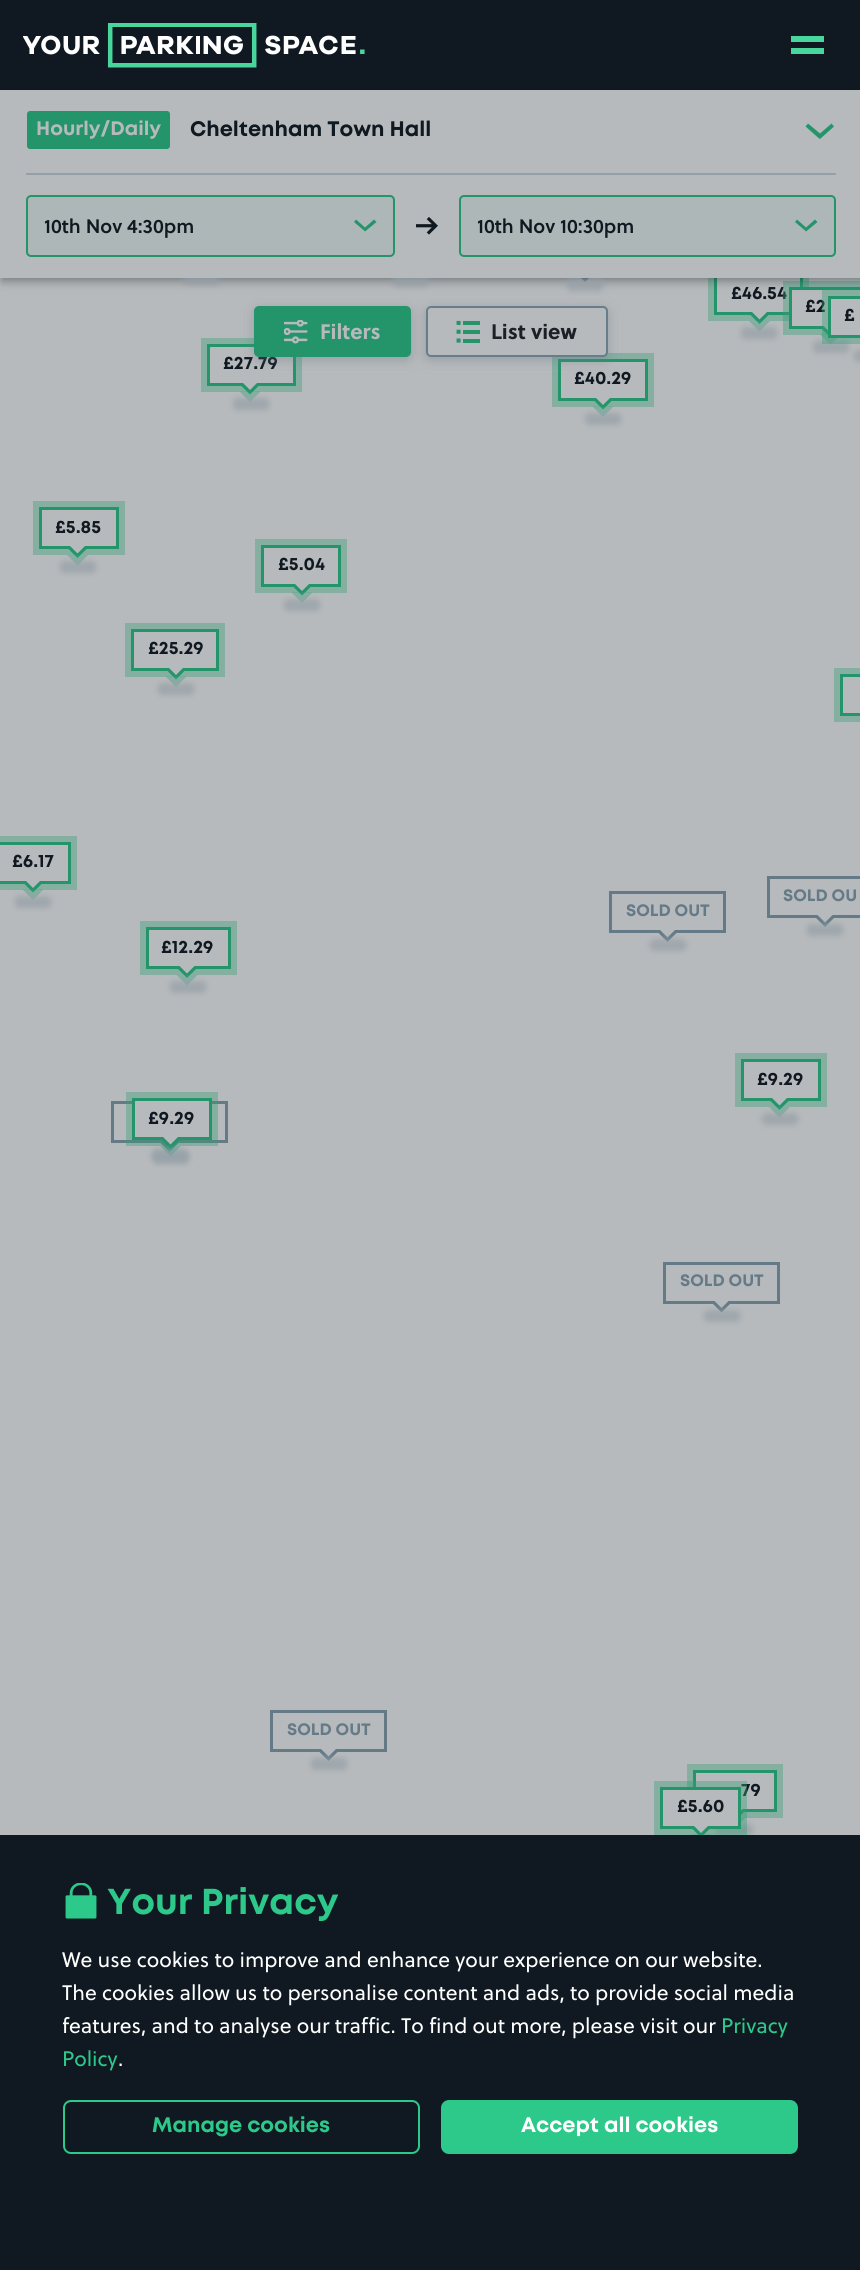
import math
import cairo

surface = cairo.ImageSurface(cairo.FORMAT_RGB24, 860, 2270)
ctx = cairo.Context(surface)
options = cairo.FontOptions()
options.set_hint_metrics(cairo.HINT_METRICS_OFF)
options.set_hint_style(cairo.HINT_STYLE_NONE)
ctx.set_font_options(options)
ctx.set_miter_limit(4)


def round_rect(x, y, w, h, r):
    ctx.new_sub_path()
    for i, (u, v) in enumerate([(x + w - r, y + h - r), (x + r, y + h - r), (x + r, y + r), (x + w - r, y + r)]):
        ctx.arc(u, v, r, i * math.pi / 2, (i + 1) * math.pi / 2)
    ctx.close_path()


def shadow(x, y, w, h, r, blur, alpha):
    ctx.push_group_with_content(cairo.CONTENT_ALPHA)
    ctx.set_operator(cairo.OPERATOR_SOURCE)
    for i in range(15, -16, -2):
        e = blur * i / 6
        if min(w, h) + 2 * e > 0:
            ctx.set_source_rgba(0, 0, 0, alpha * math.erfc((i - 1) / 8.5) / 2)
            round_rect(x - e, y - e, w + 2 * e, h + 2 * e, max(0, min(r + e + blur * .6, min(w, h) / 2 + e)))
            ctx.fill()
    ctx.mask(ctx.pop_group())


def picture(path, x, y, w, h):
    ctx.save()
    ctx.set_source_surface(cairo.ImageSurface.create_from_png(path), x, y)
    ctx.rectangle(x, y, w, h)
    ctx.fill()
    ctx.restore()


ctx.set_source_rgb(0.718, 0.729, 0.737)
ctx.paint()
ctx.set_source_rgb(0.518, 0.686, 0.631)
ctx.new_path()
ctx.move_to(400.5, 268.5)
ctx.line_to(421.5, 268.5)
ctx.line_to(411, 279)
ctx.close_path()
ctx.fill()
ctx.set_source_rgb(0.396, 0.478, 0.529)
ctx.new_path()
ctx.move_to(576, 273)
ctx.line_to(594, 273)
ctx.line_to(585, 282)
ctx.close_path()
ctx.fill()
ctx.set_source_rgb(0.518, 0.686, 0.631)
ctx.rectangle(708, 278, 101, 43)
ctx.fill()
ctx.set_source_rgb(0.718, 0.729, 0.737)
ctx.rectangle(717, 278, 83, 34)
ctx.fill()
ctx.rectangle(715.5, 274.5, 86, 39)
ctx.set_source_rgb(0.141, 0.58, 0.42)
ctx.set_line_width(3)
ctx.stroke()
ctx.select_font_face("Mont", cairo.FONT_SLANT_NORMAL, cairo.FONT_WEIGHT_BOLD)
ctx.set_font_size(18)
ctx.set_source_rgb(0.063, 0.098, 0.129)
ctx.move_to(731, 299)
ctx.show_text("£46.54")
ctx.set_source_rgb(0.141, 0.58, 0.42)
ctx.new_path()
ctx.move_to(750.5, 315)
ctx.line_to(768.5, 315)
ctx.line_to(759.5, 324)
ctx.close_path()
ctx.fill()
ctx.set_source_rgb(0.718, 0.729, 0.737)
ctx.new_path()
ctx.move_to(750.5, 310.5)
ctx.line_to(768.5, 310.5)
ctx.line_to(759.5, 319.5)
ctx.close_path()
ctx.fill()
ctx.set_source_rgba(0.22, 0.616, 0.471, 0.4)
ctx.new_path()
ctx.move_to(749, 321)
ctx.line_to(770, 321)
ctx.line_to(759.5, 331.5)
ctx.close_path()
ctx.fill()
ctx.set_source_rgb(0.58, 0.624, 0.655)
shadow(741, 327, 36, 12, 6, 3, 0.7)
ctx.set_source_rgba(0.22, 0.616, 0.471, 0.4)
ctx.rectangle(783, 281, 77, 54)
ctx.fill()
ctx.set_source_rgb(0.718, 0.729, 0.737)
ctx.rectangle(790.5, 288.5, 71, 39)
ctx.fill_preserve()
ctx.set_source_rgb(0.141, 0.58, 0.42)
ctx.stroke()
ctx.set_source_rgb(0.063, 0.098, 0.129)
ctx.move_to(805, 312)
ctx.show_text("£2")
ctx.set_source_rgb(0.141, 0.58, 0.42)
ctx.new_path()
ctx.move_to(821.5, 328.5)
ctx.line_to(839.5, 328.5)
ctx.line_to(830.5, 337.5)
ctx.close_path()
ctx.fill()
ctx.set_source_rgb(0.718, 0.729, 0.737)
ctx.new_path()
ctx.move_to(821.5, 324)
ctx.line_to(839.5, 324)
ctx.line_to(830.5, 333)
ctx.close_path()
ctx.fill()
ctx.set_source_rgba(0.22, 0.616, 0.471, 0.4)
ctx.new_path()
ctx.move_to(820, 334.5)
ctx.line_to(841, 334.5)
ctx.line_to(830.5, 345)
ctx.close_path()
ctx.fill()
ctx.set_source_rgb(0.58, 0.624, 0.655)
shadow(813, 341, 36, 12, 6, 3, 0.7)
ctx.set_source_rgba(0.22, 0.616, 0.471, 0.4)
ctx.rectangle(822, 290, 38, 54)
ctx.fill()
ctx.set_source_rgb(0.718, 0.729, 0.737)
ctx.rectangle(829.5, 297.5, 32, 39)
ctx.fill_preserve()
ctx.set_source_rgb(0.141, 0.58, 0.42)
ctx.stroke()
ctx.set_source_rgb(0.063, 0.098, 0.129)
shadow(2, 93, 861, 188, 0, 5, 0.4)
ctx.set_source_rgb(0.063, 0.098, 0.129)
ctx.rectangle(0, 0, 860, 90)
ctx.fill()
picture("img1.png", 23, 23, 342, 45)
ctx.set_source_rgb(0.286, 0.839, 0.616)
ctx.rectangle(791, 36, 33, 6)
ctx.fill()
ctx.rectangle(791, 48, 33, 6)
ctx.fill()
ctx.set_source_rgb(0.58, 0.624, 0.655)
shadow(183, 273, 36, 12, 6, 3, 0.7)
shadow(393, 275, 36, 12, 6, 3, 0.7)
shadow(567, 279, 36, 12, 6, 3, 0.7)
ctx.set_source_rgb(0.718, 0.729, 0.737)
ctx.rectangle(0, 90, 860, 188)
ctx.fill()
ctx.set_source_rgb(0.141, 0.58, 0.42)
round_rect(27, 111, 143, 38, 3)
ctx.fill()
ctx.set_font_size(19.5)
ctx.set_source_rgb(0.718, 0.729, 0.737)
ctx.move_to(36, 135)
ctx.show_text("Hourly/Daily")
ctx.set_font_size(21)
ctx.set_source_rgb(0.063, 0.098, 0.129)
ctx.move_to(190, 136)
ctx.show_text("Cheltenham Town Hall")
ctx.set_source_rgb(0.141, 0.58, 0.42)
ctx.new_path()
ctx.move_to(820, 139)
ctx.line_to(834, 126.5)
ctx.line_to(831.5, 123.5)
ctx.line_to(820, 133.5)
ctx.line_to(808, 123.5)
ctx.line_to(805.5, 126.5)
ctx.line_to(818.5, 138)
ctx.close_path()
ctx.fill()
ctx.set_source_rgb(0.58, 0.624, 0.655)
ctx.rectangle(26, 173, 810, 2)
ctx.fill()
ctx.set_source_rgb(0.678, 0.718, 0.718)
round_rect(27, 196, 367, 60, 4)
ctx.fill_preserve()
ctx.set_source_rgb(0.141, 0.58, 0.42)
ctx.set_line_width(2)
ctx.stroke()
ctx.select_font_face("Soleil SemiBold")
ctx.set_font_size(19.5)
ctx.set_source_rgb(0.063, 0.098, 0.129)
ctx.move_to(44, 233)
ctx.show_text("10th Nov 4:30pm")
ctx.set_source_rgb(0.141, 0.58, 0.42)
ctx.new_path()
ctx.move_to(365, 231.5)
ctx.line_to(376.5, 222)
ctx.line_to(374, 219.5)
ctx.line_to(365, 227.5)
ctx.line_to(356, 219.5)
ctx.line_to(354, 222)
ctx.line_to(364, 230.5)
ctx.close_path()
ctx.fill()
picture("img2.png", 416, 217, 22, 18)
ctx.set_source_rgb(0.678, 0.718, 0.718)
round_rect(460, 196, 375, 60, 4)
ctx.fill_preserve()
ctx.set_source_rgb(0.141, 0.58, 0.42)
ctx.stroke()
ctx.set_source_rgb(0.063, 0.098, 0.129)
ctx.move_to(477, 233)
ctx.show_text("10th Nov 10:30pm")
ctx.set_source_rgb(0.141, 0.58, 0.42)
ctx.new_path()
ctx.move_to(806, 231.5)
ctx.line_to(817.5, 222)
ctx.line_to(815, 219.5)
ctx.line_to(806, 227.5)
ctx.line_to(797, 219.5)
ctx.line_to(795, 222)
ctx.line_to(805, 230.5)
ctx.close_path()
ctx.fill()
ctx.select_font_face("Mont", cairo.FONT_SLANT_NORMAL, cairo.FONT_WEIGHT_BOLD)
ctx.set_font_size(18)
ctx.set_source_rgb(0.063, 0.098, 0.129)
ctx.move_to(844, 321)
ctx.show_text("£")
ctx.set_source_rgb(0.58, 0.624, 0.655)
shadow(854, 350, 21, 12, 6, 3, 0.7)
ctx.set_source_rgb(0.518, 0.686, 0.631)
ctx.rectangle(201, 338, 101, 54)
ctx.fill()
ctx.set_source_rgb(0.718, 0.729, 0.737)
ctx.rectangle(208.5, 345.5, 86, 39)
ctx.fill_preserve()
ctx.set_source_rgb(0.141, 0.58, 0.42)
ctx.set_line_width(3)
ctx.stroke()
ctx.set_source_rgb(0.063, 0.098, 0.129)
ctx.move_to(223, 369)
ctx.show_text("£27.79")
ctx.set_source_rgb(0.141, 0.58, 0.42)
ctx.new_path()
ctx.move_to(241, 385.5)
ctx.line_to(259, 385.5)
ctx.line_to(250, 394.5)
ctx.close_path()
ctx.fill()
ctx.set_source_rgb(0.718, 0.729, 0.737)
ctx.new_path()
ctx.move_to(241, 381)
ctx.line_to(259, 381)
ctx.line_to(250, 390)
ctx.close_path()
ctx.fill()
ctx.set_source_rgba(0.22, 0.616, 0.471, 0.4)
ctx.new_path()
ctx.move_to(239.5, 391.5)
ctx.line_to(260.5, 391.5)
ctx.line_to(250, 402)
ctx.close_path()
ctx.fill()
ctx.set_source_rgb(0.58, 0.624, 0.655)
shadow(233, 398, 36, 12, 6, 3, 0.7)
ctx.set_source_rgb(0.518, 0.686, 0.631)
ctx.rectangle(552, 353, 102, 54)
ctx.fill()
ctx.set_source_rgb(0.718, 0.729, 0.737)
ctx.rectangle(559.5, 360.5, 87, 39)
ctx.fill_preserve()
ctx.set_source_rgb(0.141, 0.58, 0.42)
ctx.stroke()
ctx.set_source_rgb(0.063, 0.098, 0.129)
ctx.move_to(574, 384)
ctx.show_text("£40.29")
ctx.set_source_rgb(0.141, 0.58, 0.42)
ctx.new_path()
ctx.move_to(594, 400.5)
ctx.line_to(612, 400.5)
ctx.line_to(603, 409.5)
ctx.close_path()
ctx.fill()
ctx.set_source_rgb(0.718, 0.729, 0.737)
ctx.new_path()
ctx.move_to(594, 396)
ctx.line_to(612, 396)
ctx.line_to(603, 405)
ctx.close_path()
ctx.fill()
ctx.set_source_rgba(0.22, 0.616, 0.471, 0.4)
ctx.new_path()
ctx.move_to(592.5, 406.5)
ctx.line_to(613.5, 406.5)
ctx.line_to(603, 417)
ctx.close_path()
ctx.fill()
ctx.set_source_rgb(0.58, 0.624, 0.655)
shadow(585, 413, 36, 12, 6, 3, 0.7)
ctx.set_source_rgb(0.518, 0.686, 0.631)
ctx.rectangle(33, 501, 92, 54)
ctx.fill()
ctx.set_source_rgb(0.718, 0.729, 0.737)
ctx.rectangle(40.5, 508.5, 77, 39)
ctx.fill_preserve()
ctx.set_source_rgb(0.141, 0.58, 0.42)
ctx.stroke()
ctx.set_source_rgb(0.063, 0.098, 0.129)
ctx.move_to(55, 533)
ctx.show_text("£5.85")
ctx.set_source_rgb(0.141, 0.58, 0.42)
ctx.new_path()
ctx.move_to(68.5, 549)
ctx.line_to(86.5, 549)
ctx.line_to(77.5, 558)
ctx.close_path()
ctx.fill()
ctx.set_source_rgb(0.718, 0.729, 0.737)
ctx.new_path()
ctx.move_to(68.5, 544.5)
ctx.line_to(86.5, 544.5)
ctx.line_to(77.5, 553.5)
ctx.close_path()
ctx.fill()
ctx.set_source_rgba(0.22, 0.616, 0.471, 0.4)
ctx.new_path()
ctx.move_to(67, 555)
ctx.line_to(88, 555)
ctx.line_to(77.5, 565.5)
ctx.close_path()
ctx.fill()
ctx.set_source_rgb(0.58, 0.624, 0.655)
shadow(60, 561, 36, 12, 6, 3, 0.7)
ctx.set_source_rgb(0.518, 0.686, 0.631)
ctx.rectangle(255, 539, 92, 54)
ctx.fill()
ctx.set_source_rgb(0.718, 0.729, 0.737)
ctx.rectangle(262.5, 546.5, 77, 39)
ctx.fill_preserve()
ctx.set_source_rgb(0.141, 0.58, 0.42)
ctx.stroke()
ctx.set_source_rgb(0.063, 0.098, 0.129)
ctx.move_to(278, 570)
ctx.show_text("£5.04")
ctx.set_source_rgb(0.141, 0.58, 0.42)
ctx.new_path()
ctx.move_to(293, 586.5)
ctx.line_to(311, 586.5)
ctx.line_to(302, 595.5)
ctx.close_path()
ctx.fill()
ctx.set_source_rgb(0.718, 0.729, 0.737)
ctx.new_path()
ctx.move_to(293, 582)
ctx.line_to(311, 582)
ctx.line_to(302, 591)
ctx.close_path()
ctx.fill()
ctx.set_source_rgba(0.22, 0.616, 0.471, 0.4)
ctx.new_path()
ctx.move_to(291.5, 592.5)
ctx.line_to(312.5, 592.5)
ctx.line_to(302, 603)
ctx.close_path()
ctx.fill()
ctx.set_source_rgb(0.58, 0.624, 0.655)
shadow(284, 599, 36, 12, 6, 3, 0.7)
ctx.set_source_rgb(0.518, 0.686, 0.631)
ctx.rectangle(125, 623, 100, 54)
ctx.fill()
ctx.set_source_rgb(0.718, 0.729, 0.737)
ctx.rectangle(132.5, 630.5, 85, 39)
ctx.fill_preserve()
ctx.set_source_rgb(0.141, 0.58, 0.42)
ctx.stroke()
ctx.set_source_rgb(0.063, 0.098, 0.129)
ctx.move_to(148, 654)
ctx.show_text("£25.29")
ctx.set_source_rgb(0.141, 0.58, 0.42)
ctx.new_path()
ctx.move_to(167, 670.5)
ctx.line_to(185, 670.5)
ctx.line_to(176, 679.5)
ctx.close_path()
ctx.fill()
ctx.set_source_rgb(0.718, 0.729, 0.737)
ctx.new_path()
ctx.move_to(167, 666)
ctx.line_to(185, 666)
ctx.line_to(176, 675)
ctx.close_path()
ctx.fill()
ctx.set_source_rgba(0.22, 0.616, 0.471, 0.4)
ctx.new_path()
ctx.move_to(165.5, 676.5)
ctx.line_to(186.5, 676.5)
ctx.line_to(176, 687)
ctx.close_path()
ctx.fill()
ctx.set_source_rgb(0.58, 0.624, 0.655)
shadow(158, 683, 36, 12, 6, 3, 0.7)
ctx.set_source_rgb(0.518, 0.686, 0.631)
ctx.rectangle(834, 668, 26, 54)
ctx.fill()
ctx.set_source_rgb(0.718, 0.729, 0.737)
ctx.rectangle(841.5, 675.5, 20, 39)
ctx.fill_preserve()
ctx.set_source_rgb(0.141, 0.58, 0.42)
ctx.stroke()
ctx.set_source_rgb(0.518, 0.686, 0.631)
ctx.rectangle(0, 836, 77, 54)
ctx.fill()
ctx.set_source_rgb(0.718, 0.729, 0.737)
ctx.rectangle(-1.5, 843.5, 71, 39)
ctx.fill_preserve()
ctx.set_source_rgb(0.141, 0.58, 0.42)
ctx.stroke()
ctx.set_source_rgb(0.063, 0.098, 0.129)
ctx.move_to(12, 867)
ctx.show_text("£6.17")
ctx.set_source_rgb(0.141, 0.58, 0.42)
ctx.new_path()
ctx.move_to(24, 883.5)
ctx.line_to(42, 883.5)
ctx.line_to(33, 892.5)
ctx.close_path()
ctx.fill()
ctx.set_source_rgb(0.718, 0.729, 0.737)
ctx.new_path()
ctx.move_to(24, 879)
ctx.line_to(42, 879)
ctx.line_to(33, 888)
ctx.close_path()
ctx.fill()
ctx.set_source_rgba(0.22, 0.616, 0.471, 0.4)
ctx.new_path()
ctx.move_to(22.5, 889.5)
ctx.line_to(43.5, 889.5)
ctx.line_to(33, 900)
ctx.close_path()
ctx.fill()
ctx.set_source_rgb(0.58, 0.624, 0.655)
shadow(15, 896, 36, 12, 6, 3, 0.7)
ctx.rectangle(768.5, 877.5, 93, 39)
ctx.set_source_rgb(0.396, 0.478, 0.529)
ctx.stroke()
ctx.set_font_size(16.5)
ctx.move_to(783, 901)
ctx.show_text("SOLD OU")
ctx.new_path()
ctx.move_to(816, 918)
ctx.line_to(834, 918)
ctx.line_to(825, 927)
ctx.close_path()
ctx.fill()
ctx.set_source_rgb(0.718, 0.729, 0.737)
ctx.new_path()
ctx.move_to(816, 913.5)
ctx.line_to(834, 913.5)
ctx.line_to(825, 922.5)
ctx.close_path()
ctx.fill()
ctx.set_source_rgb(0.58, 0.624, 0.655)
shadow(807, 924, 36, 12, 6, 3, 0.7)
ctx.rectangle(610.5, 892.5, 114, 39)
ctx.set_source_rgb(0.396, 0.478, 0.529)
ctx.stroke()
ctx.move_to(626, 916)
ctx.show_text("SOLD OUT")
ctx.new_path()
ctx.move_to(658.5, 933)
ctx.line_to(676.5, 933)
ctx.line_to(667.5, 942)
ctx.close_path()
ctx.fill()
ctx.set_source_rgb(0.718, 0.729, 0.737)
ctx.new_path()
ctx.move_to(658.5, 928.5)
ctx.line_to(676.5, 928.5)
ctx.line_to(667.5, 937.5)
ctx.close_path()
ctx.fill()
ctx.set_source_rgb(0.58, 0.624, 0.655)
shadow(650, 939, 36, 12, 6, 3, 0.7)
ctx.set_source_rgb(0.518, 0.686, 0.631)
ctx.rectangle(140, 921, 97, 54)
ctx.fill()
ctx.set_source_rgb(0.718, 0.729, 0.737)
ctx.rectangle(147.5, 928.5, 82, 39)
ctx.fill_preserve()
ctx.set_source_rgb(0.141, 0.58, 0.42)
ctx.stroke()
ctx.set_font_size(18)
ctx.set_source_rgb(0.063, 0.098, 0.129)
ctx.move_to(161, 953)
ctx.show_text("£12.29")
ctx.set_source_rgb(0.141, 0.58, 0.42)
ctx.new_path()
ctx.move_to(178, 969)
ctx.line_to(196, 969)
ctx.line_to(187, 978)
ctx.close_path()
ctx.fill()
ctx.set_source_rgb(0.718, 0.729, 0.737)
ctx.new_path()
ctx.move_to(178, 964.5)
ctx.line_to(196, 964.5)
ctx.line_to(187, 973.5)
ctx.close_path()
ctx.fill()
ctx.set_source_rgba(0.22, 0.616, 0.471, 0.4)
ctx.new_path()
ctx.move_to(176.5, 975)
ctx.line_to(197.5, 975)
ctx.line_to(187, 985.5)
ctx.close_path()
ctx.fill()
ctx.set_source_rgb(0.58, 0.624, 0.655)
shadow(170, 981, 36, 12, 6, 3, 0.7)
ctx.set_source_rgb(0.518, 0.686, 0.631)
ctx.rectangle(735, 1053, 92, 54)
ctx.fill()
ctx.set_source_rgb(0.718, 0.729, 0.737)
ctx.rectangle(742.5, 1060.5, 77, 39)
ctx.fill_preserve()
ctx.set_source_rgb(0.141, 0.58, 0.42)
ctx.stroke()
ctx.set_source_rgb(0.063, 0.098, 0.129)
ctx.move_to(757, 1085)
ctx.show_text("£9.29")
ctx.set_source_rgb(0.141, 0.58, 0.42)
ctx.new_path()
ctx.move_to(770.5, 1101)
ctx.line_to(788.5, 1101)
ctx.line_to(779.5, 1110)
ctx.close_path()
ctx.fill()
ctx.set_source_rgb(0.718, 0.729, 0.737)
ctx.new_path()
ctx.move_to(770.5, 1096.5)
ctx.line_to(788.5, 1096.5)
ctx.line_to(779.5, 1105.5)
ctx.close_path()
ctx.fill()
ctx.set_source_rgba(0.22, 0.616, 0.471, 0.4)
ctx.new_path()
ctx.move_to(769, 1107)
ctx.line_to(790, 1107)
ctx.line_to(779.5, 1117.5)
ctx.close_path()
ctx.fill()
ctx.set_source_rgb(0.58, 0.624, 0.655)
shadow(762, 1113, 36, 12, 6, 3, 0.7)
ctx.rectangle(112.5, 1102.5, 114, 39)
ctx.set_source_rgb(0.396, 0.478, 0.529)
ctx.stroke()
ctx.new_path()
ctx.move_to(160.5, 1143)
ctx.line_to(178.5, 1143)
ctx.line_to(169.5, 1152)
ctx.close_path()
ctx.fill()
ctx.set_source_rgb(0.58, 0.624, 0.655)
shadow(152, 1149, 36, 12, 6, 3, 0.7)
ctx.set_source_rgba(0.22, 0.616, 0.471, 0.4)
ctx.rectangle(126, 1092, 92, 54)
ctx.fill()
ctx.set_source_rgb(0.718, 0.729, 0.737)
ctx.rectangle(133.5, 1099.5, 77, 39)
ctx.fill_preserve()
ctx.set_source_rgb(0.141, 0.58, 0.42)
ctx.stroke()
ctx.set_source_rgb(0.063, 0.098, 0.129)
ctx.move_to(148, 1124)
ctx.show_text("£9.29")
ctx.set_source_rgb(0.141, 0.58, 0.42)
ctx.new_path()
ctx.move_to(161.5, 1140)
ctx.line_to(179.5, 1140)
ctx.line_to(170.5, 1149)
ctx.close_path()
ctx.fill()
ctx.set_source_rgb(0.718, 0.729, 0.737)
ctx.new_path()
ctx.move_to(161.5, 1135.5)
ctx.line_to(179.5, 1135.5)
ctx.line_to(170.5, 1144.5)
ctx.close_path()
ctx.fill()
ctx.set_source_rgba(0.22, 0.616, 0.471, 0.4)
ctx.new_path()
ctx.move_to(160, 1146)
ctx.line_to(181, 1146)
ctx.line_to(170.5, 1156.5)
ctx.close_path()
ctx.fill()
ctx.set_source_rgb(0.58, 0.624, 0.655)
shadow(153, 1152, 36, 12, 6, 3, 0.7)
ctx.rectangle(664.5, 1263.5, 114, 39)
ctx.set_source_rgb(0.396, 0.478, 0.529)
ctx.stroke()
ctx.set_font_size(16.5)
ctx.move_to(680, 1286)
ctx.show_text("SOLD OUT")
ctx.new_path()
ctx.move_to(712.5, 1303.5)
ctx.line_to(730.5, 1303.5)
ctx.line_to(721.5, 1312.5)
ctx.close_path()
ctx.fill()
ctx.set_source_rgb(0.718, 0.729, 0.737)
ctx.new_path()
ctx.move_to(712.5, 1299)
ctx.line_to(730.5, 1299)
ctx.line_to(721.5, 1308)
ctx.close_path()
ctx.fill()
ctx.set_source_rgb(0.58, 0.624, 0.655)
shadow(704, 1310, 36, 12, 6, 3, 0.7)
ctx.rectangle(271.5, 1711.5, 114, 39)
ctx.set_source_rgb(0.396, 0.478, 0.529)
ctx.stroke()
ctx.move_to(287, 1735)
ctx.show_text("SOLD OUT")
ctx.new_path()
ctx.move_to(319.5, 1752)
ctx.line_to(337.5, 1752)
ctx.line_to(328.5, 1761)
ctx.close_path()
ctx.fill()
ctx.set_source_rgb(0.718, 0.729, 0.737)
ctx.new_path()
ctx.move_to(319.5, 1747.5)
ctx.line_to(337.5, 1747.5)
ctx.line_to(328.5, 1756.5)
ctx.close_path()
ctx.fill()
ctx.set_source_rgb(0.58, 0.624, 0.655)
shadow(311, 1758, 36, 12, 6, 3, 0.7)
ctx.set_source_rgb(0.518, 0.686, 0.631)
ctx.rectangle(687, 1764, 96, 54)
ctx.fill()
ctx.set_source_rgb(0.718, 0.729, 0.737)
ctx.rectangle(694.5, 1771.5, 81, 39)
ctx.fill_preserve()
ctx.set_source_rgb(0.141, 0.58, 0.42)
ctx.stroke()
ctx.set_font_size(18)
ctx.set_source_rgb(0.063, 0.098, 0.129)
ctx.move_to(741, 1796)
ctx.show_text("79")
ctx.set_source_rgb(0.141, 0.58, 0.42)
ctx.new_path()
ctx.move_to(726, 1812)
ctx.line_to(744, 1812)
ctx.line_to(735, 1821)
ctx.close_path()
ctx.fill()
ctx.set_source_rgb(0.718, 0.729, 0.737)
ctx.new_path()
ctx.move_to(726, 1807.5)
ctx.line_to(744, 1807.5)
ctx.line_to(735, 1816.5)
ctx.close_path()
ctx.fill()
ctx.set_source_rgba(0.22, 0.616, 0.471, 0.4)
ctx.new_path()
ctx.move_to(724.5, 1818)
ctx.line_to(745.5, 1818)
ctx.line_to(735, 1828.5)
ctx.close_path()
ctx.fill()
ctx.set_source_rgb(0.58, 0.624, 0.655)
shadow(717, 1824, 36, 12, 6, 3, 0.7)
ctx.set_source_rgba(0.22, 0.616, 0.471, 0.4)
ctx.rectangle(654, 1781, 93, 54)
ctx.fill()
ctx.set_source_rgb(0.718, 0.729, 0.737)
ctx.rectangle(661.5, 1788.5, 78, 39)
ctx.fill_preserve()
ctx.set_source_rgb(0.141, 0.58, 0.42)
ctx.stroke()
ctx.set_source_rgb(0.063, 0.098, 0.129)
ctx.move_to(677, 1812)
ctx.show_text("£5.60")
ctx.set_source_rgb(0.141, 0.58, 0.42)
ctx.new_path()
ctx.move_to(692, 1828.5)
ctx.line_to(710, 1828.5)
ctx.line_to(701, 1837.5)
ctx.close_path()
ctx.fill()
ctx.set_source_rgb(0.718, 0.729, 0.737)
ctx.new_path()
ctx.move_to(692, 1824)
ctx.line_to(710, 1824)
ctx.line_to(701, 1833)
ctx.close_path()
ctx.fill()
ctx.set_source_rgba(0.22, 0.616, 0.471, 0.4)
ctx.new_path()
ctx.move_to(690.5, 1834.5)
ctx.line_to(711.5, 1834.5)
ctx.line_to(701, 1845)
ctx.close_path()
ctx.fill()
ctx.set_source_rgb(0.396, 0.478, 0.529)
shadow(254, 309, 157, 51, 5, 6, 0.42)
ctx.set_source_rgb(0.141, 0.58, 0.42)
round_rect(255, 307, 155, 49, 4)
ctx.fill_preserve()
ctx.set_line_width(2)
ctx.stroke()
picture("img3.png", 284, 320, 24, 24)
ctx.select_font_face("Soleil", cairo.FONT_SLANT_NORMAL, cairo.FONT_WEIGHT_BOLD)
ctx.set_font_size(21)
ctx.set_source_rgb(0.718, 0.729, 0.737)
ctx.move_to(320, 339)
ctx.show_text("Filters")
ctx.set_source_rgb(0.396, 0.478, 0.529)
shadow(426, 309, 182, 51, 5, 6, 0.42)
ctx.set_source_rgb(0.718, 0.729, 0.737)
round_rect(427, 307, 180, 49, 4)
ctx.fill_preserve()
ctx.set_source_rgb(0.408, 0.49, 0.545)
ctx.stroke()
picture("img4.png", 456, 320, 24, 23)
ctx.set_source_rgb(0.11, 0.129, 0.153)
ctx.move_to(491, 339)
ctx.show_text("List view")
ctx.set_source_rgb(0.063, 0.098, 0.129)
ctx.rectangle(0, 1835, 860, 435)
ctx.fill()
picture("img5.png", 65, 1883, 32, 36)
ctx.select_font_face("Mont", cairo.FONT_SLANT_NORMAL, cairo.FONT_WEIGHT_BOLD)
ctx.set_font_size(36)
ctx.set_source_rgb(0.176, 0.788, 0.541)
ctx.move_to(107, 1914)
ctx.show_text("Your Privacy")
ctx.select_font_face("Soleil")
ctx.set_font_size(21)
ctx.set_source_rgb(1, 1, 1)
ctx.move_to(62, 1967)
ctx.show_text("We use cookies to improve and enhance your experience on our website.")
ctx.move_to(62, 2000)
ctx.show_text("The cookies allow us to personalise content and ads, to provide social media")
ctx.move_to(62, 2033)
ctx.show_text("features, and to analyse our traffic. To find out more, please visit our")
ctx.set_source_rgb(0.176, 0.788, 0.541)
ctx.move_to(721, 2033)
ctx.show_text("Privacy")
ctx.move_to(62, 2066)
ctx.show_text("Policy")
ctx.set_source_rgb(1, 1, 1)
ctx.move_to(118, 2066)
ctx.show_text(".")
round_rect(64, 2101, 355, 52, 7)
ctx.set_source_rgb(0.176, 0.788, 0.541)
ctx.stroke()
ctx.select_font_face("Mont", cairo.FONT_SLANT_NORMAL, cairo.FONT_WEIGHT_BOLD)
ctx.move_to(152, 2132)
ctx.show_text("Manage cookies")
round_rect(442, 2101, 355, 52, 7)
ctx.fill_preserve()
ctx.stroke()
ctx.set_source_rgb(1, 1, 1)
ctx.move_to(521, 2132)
ctx.show_text("Accept all cookies")
surface.write_to_png("page.png")
